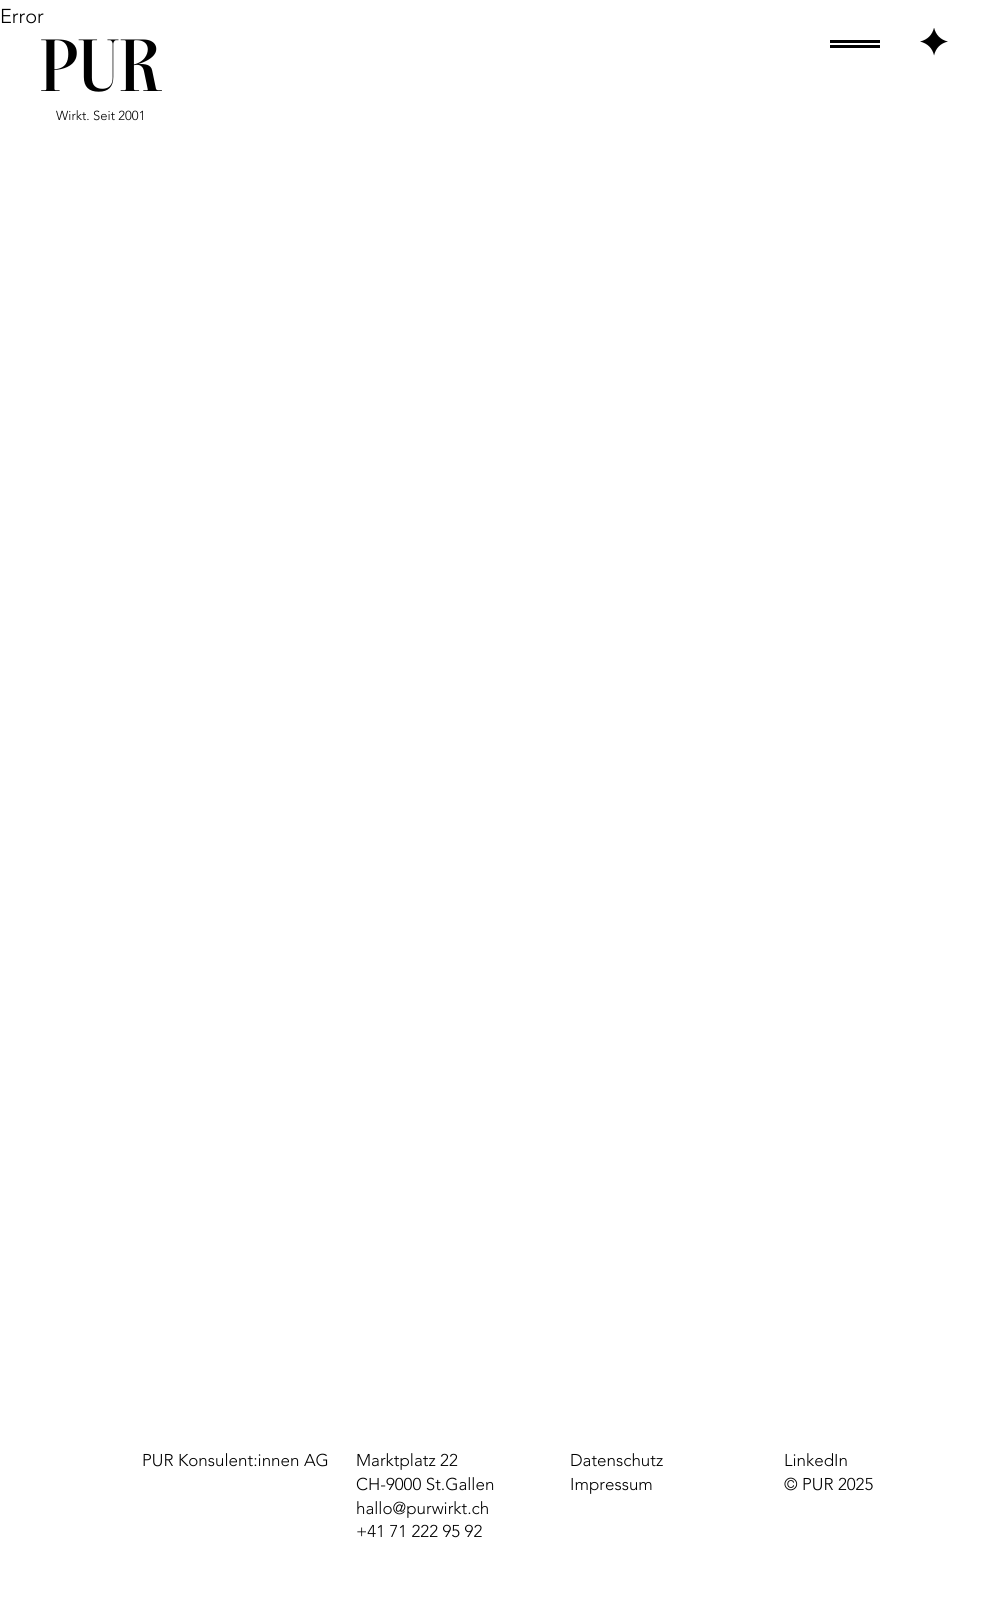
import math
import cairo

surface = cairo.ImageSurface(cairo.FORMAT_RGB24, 987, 1605)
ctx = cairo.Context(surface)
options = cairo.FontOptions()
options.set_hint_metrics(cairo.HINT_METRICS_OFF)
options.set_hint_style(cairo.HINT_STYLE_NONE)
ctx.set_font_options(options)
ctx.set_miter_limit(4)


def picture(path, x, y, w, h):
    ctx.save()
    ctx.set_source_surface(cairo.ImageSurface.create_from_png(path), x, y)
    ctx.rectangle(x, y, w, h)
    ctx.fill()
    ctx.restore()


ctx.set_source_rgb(1, 1, 1)
ctx.paint()
ctx.select_font_face("Avenir Light")
ctx.set_font_size(20)
ctx.set_source_rgb(0, 0, 0)
ctx.move_to(0, 23)
ctx.show_text("Error")
ctx.select_font_face("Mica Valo")
ctx.set_font_size(70)
ctx.move_to(40, 91)
ctx.show_text("PUR")
ctx.select_font_face("Avenir Light")
ctx.set_font_size(13)
ctx.move_to(56, 120)
ctx.show_text("Wirkt. Seit 2001")
ctx.rectangle(830, 40, 50, 3)
ctx.fill()
ctx.rectangle(830, 45, 50, 3)
ctx.fill()
picture("img1.png", 920, 28, 28, 28)
ctx.set_font_size(17)
ctx.move_to(142, 1466)
ctx.show_text("PUR Konsulent:innen AG")
ctx.move_to(356, 1466)
ctx.show_text("Marktplatz 22")
ctx.move_to(356, 1490)
ctx.show_text("CH-9000 St.Gallen")
ctx.move_to(356, 1514)
ctx.show_text("hallo@purwirkt.ch")
ctx.move_to(356, 1537)
ctx.show_text("+41 71 222 95 92")
ctx.move_to(570, 1466)
ctx.show_text("Datenschutz")
ctx.move_to(570, 1490)
ctx.show_text("Impressum")
ctx.move_to(784, 1466)
ctx.show_text("LinkedIn")
ctx.move_to(784, 1490)
ctx.show_text("© PUR 2025")
surface.write_to_png("page.png")
